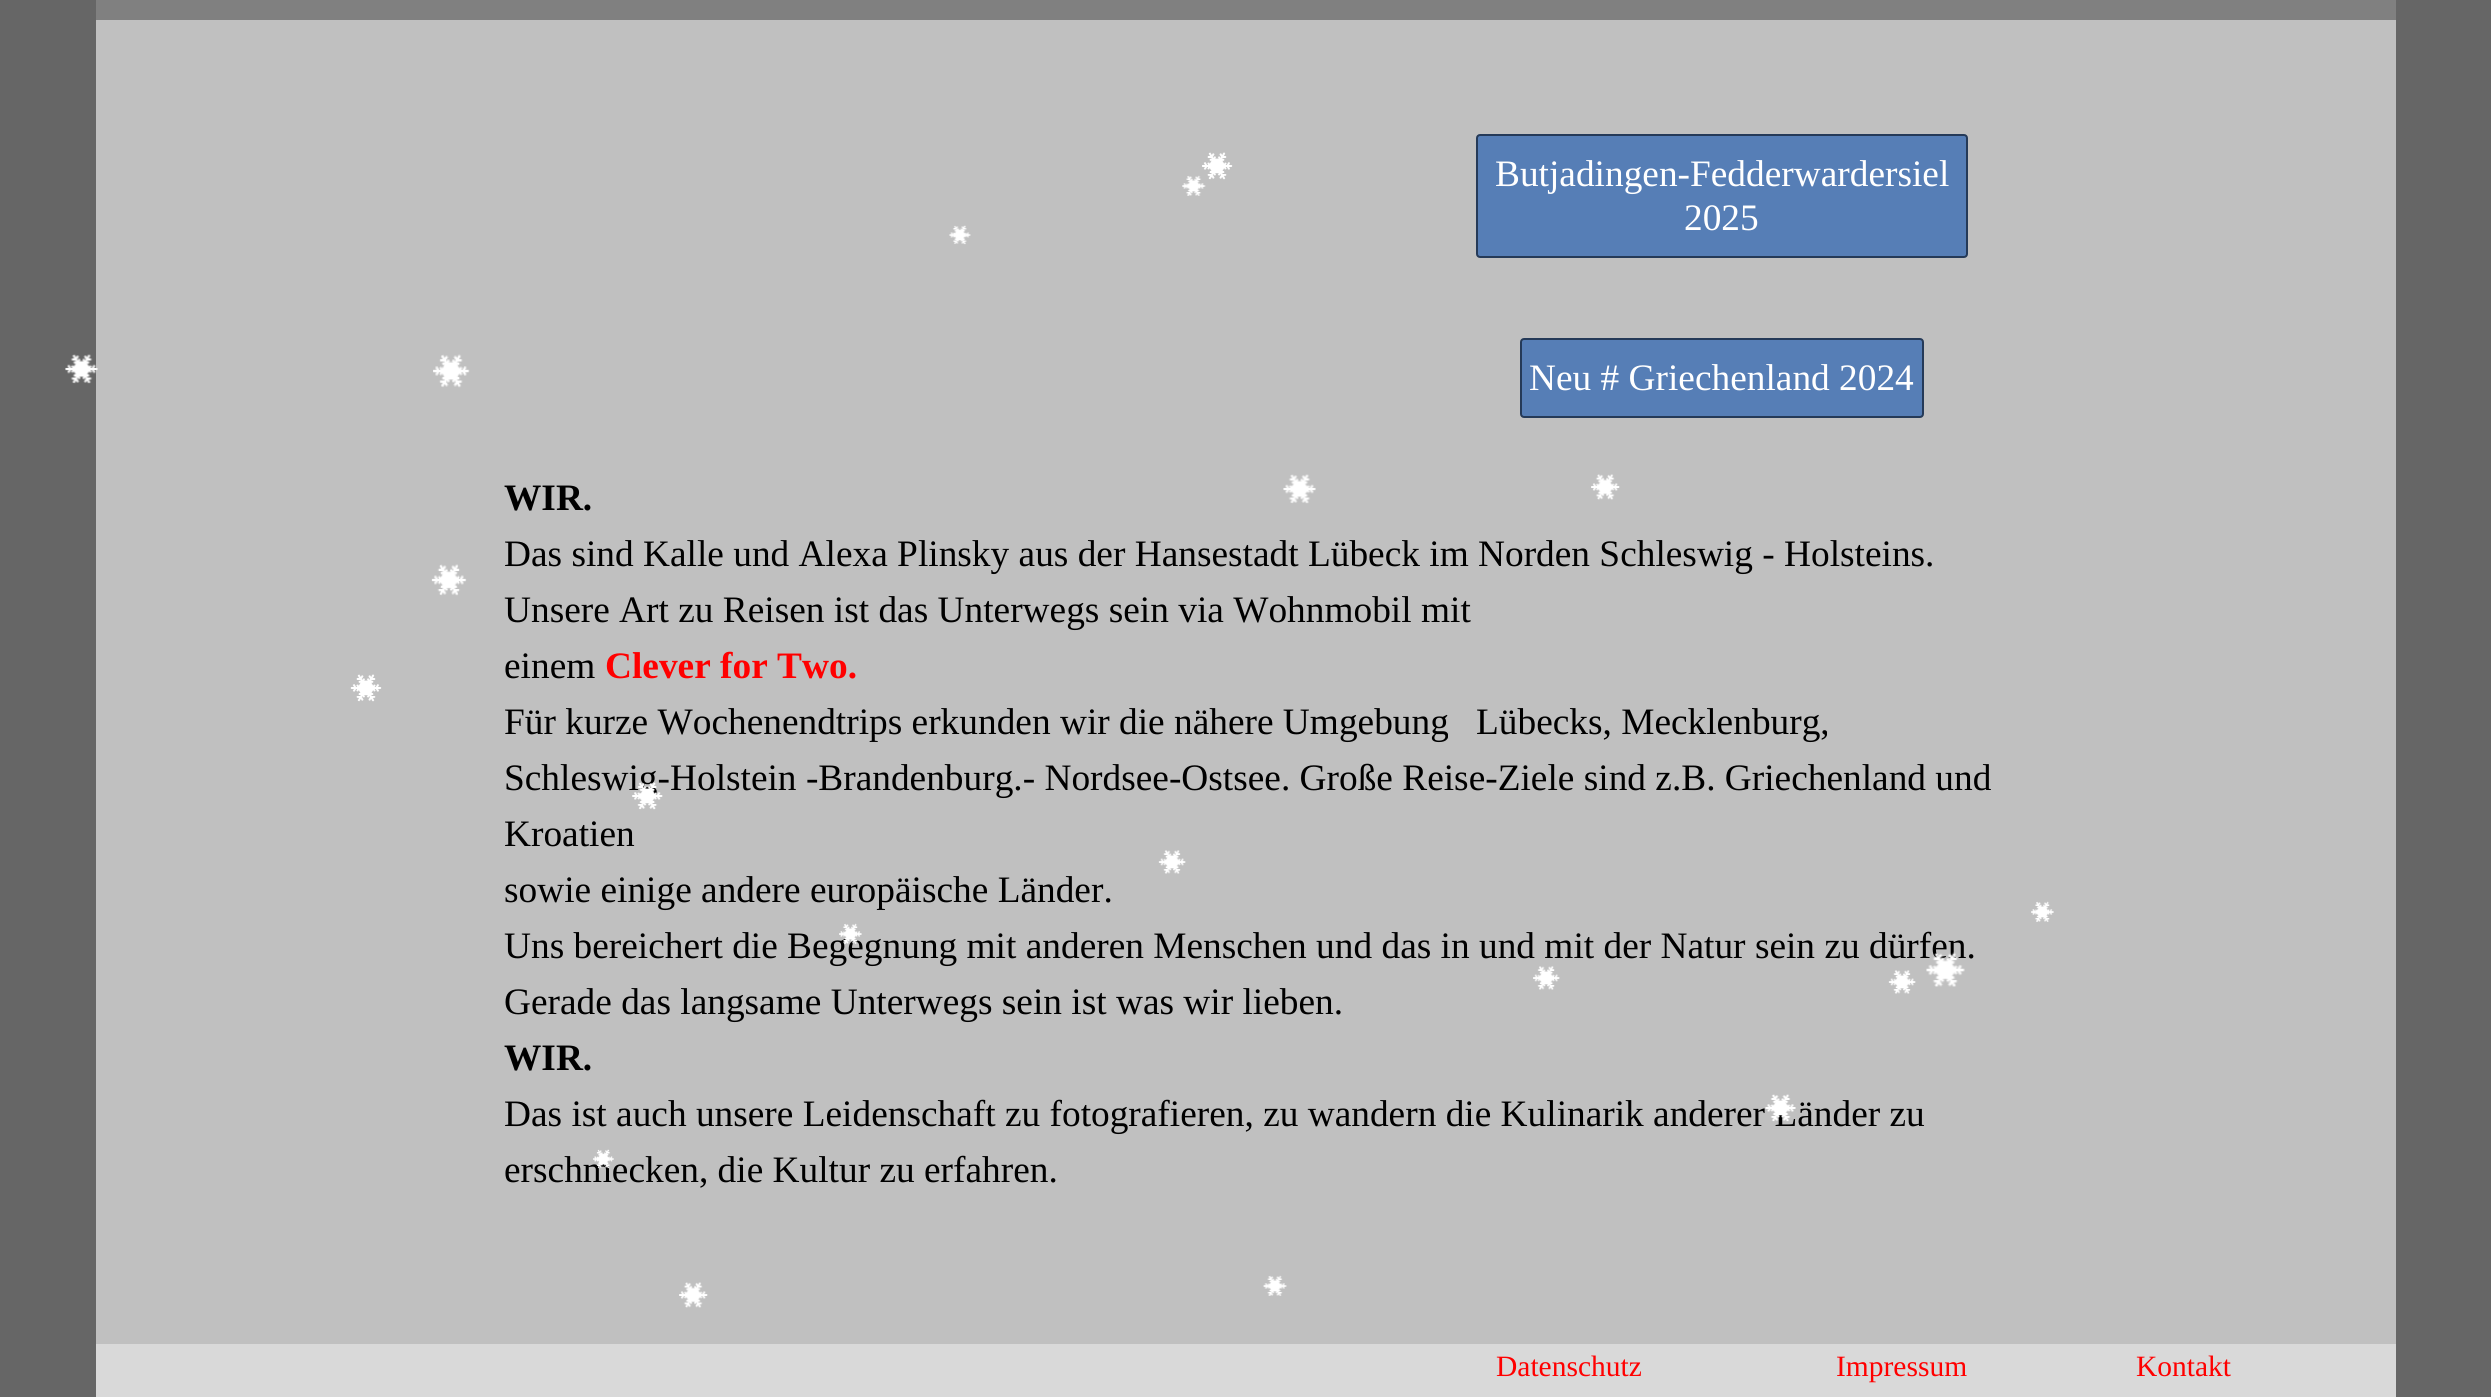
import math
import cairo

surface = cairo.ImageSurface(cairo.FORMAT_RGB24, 2491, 1397)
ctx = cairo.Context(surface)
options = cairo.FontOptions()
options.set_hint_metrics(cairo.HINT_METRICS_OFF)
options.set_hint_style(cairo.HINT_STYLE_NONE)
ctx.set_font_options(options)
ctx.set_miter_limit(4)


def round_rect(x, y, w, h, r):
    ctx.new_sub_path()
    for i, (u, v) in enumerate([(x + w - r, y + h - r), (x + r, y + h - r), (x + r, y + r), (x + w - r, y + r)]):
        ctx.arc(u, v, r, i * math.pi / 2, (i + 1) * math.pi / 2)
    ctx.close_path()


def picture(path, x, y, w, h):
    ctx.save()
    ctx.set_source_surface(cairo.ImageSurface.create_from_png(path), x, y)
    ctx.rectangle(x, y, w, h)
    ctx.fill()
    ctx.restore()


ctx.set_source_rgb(0.4, 0.4, 0.4)
ctx.paint()
ctx.set_source_rgb(0.753, 0.753, 0.753)
ctx.rectangle(96, 20, 2300, 1324)
ctx.fill()
picture("img2.png", 1182, 175, 24, 21)
picture("img1.png", 1202, 152, 31, 28)
picture("img3.png", 949, 225, 22, 20)
picture("img4.png", 65, 354, 33, 30)
picture("img5.png", 433, 354, 37, 34)
picture("img6.png", 1283, 474, 33, 30)
picture("img7.png", 1591, 474, 29, 26)
picture("img8.png", 431, 564, 36, 32)
picture("img9.png", 350, 674, 32, 28)
ctx.select_font_face("Liberation Serif")
ctx.set_font_size(37.35)
ctx.set_source_rgb(0, 0, 0)
ctx.move_to(504, 790)
ctx.show_text("Schleswig-Holstein -Brandenburg.- Nordsee-Ostsee. Große Reise-Ziele sind z.B. Griechenland und")
picture("img10.png", 632, 782, 31, 28)
picture("img11.png", 1158, 850, 28, 24)
picture("img12.png", 2031, 901, 23, 21)
ctx.move_to(504, 958)
ctx.show_text("Uns bereichert die Begegnung mit anderen Menschen und das in und mit der Natur sein zu dürfen.")
picture("img13.png", 839, 923, 23, 21)
picture("img14.png", 1533, 966, 27, 24)
picture("img11.png", 1888, 970, 28, 24)
picture("img15.png", 1926, 952, 39, 35)
ctx.move_to(504, 1126)
ctx.show_text("Das ist auch unsere Leidenschaft zu fotografieren, zu wandern die Kulinarik anderer Länder zu")
picture("img16.png", 1765, 1094, 31, 28)
ctx.move_to(504, 1182)
ctx.show_text("erschmecken, die Kultur zu erfahren.")
picture("img17.png", 593, 1149, 21, 20)
picture("img7.png", 679, 1282, 29, 26)
picture("img18.png", 1263, 1275, 24, 21)
ctx.set_source_rgb(0.502, 0.502, 0.502)
ctx.rectangle(96, 0, 2300, 20)
ctx.fill()
ctx.set_source_rgb(0.337, 0.494, 0.714)
round_rect(1477, 135, 490, 122, 3)
ctx.fill_preserve()
ctx.set_source_rgb(0.145, 0.227, 0.345)
ctx.stroke()
ctx.set_source_rgb(1, 1, 1)
ctx.move_to(1495, 186)
ctx.show_text("Butjadingen-Fedderwardersiel")
ctx.move_to(1684, 230)
ctx.show_text("2025")
ctx.set_source_rgb(0.337, 0.494, 0.714)
round_rect(1521, 339, 402, 78, 3)
ctx.fill_preserve()
ctx.set_source_rgb(0.145, 0.227, 0.345)
ctx.stroke()
ctx.set_source_rgb(1, 1, 1)
ctx.move_to(1529, 390)
ctx.show_text("Neu # Griechenland 2024")
ctx.select_font_face("Liberation Serif", cairo.FONT_SLANT_NORMAL, cairo.FONT_WEIGHT_BOLD)
ctx.set_source_rgb(0, 0, 0)
ctx.move_to(504, 510)
ctx.show_text("WIR.")
ctx.select_font_face("Liberation Serif")
ctx.move_to(504, 566)
ctx.show_text("Das sind Kalle und Alexa Plinsky aus der Hansestadt Lübeck im Norden Schleswig - Holsteins.")
ctx.move_to(504, 622)
ctx.show_text("Unsere Art zu Reisen ist das Unterwegs sein via Wohnmobil mit")
ctx.move_to(504, 678)
ctx.show_text("einem")
ctx.select_font_face("Liberation Serif", cairo.FONT_SLANT_NORMAL, cairo.FONT_WEIGHT_BOLD)
ctx.set_source_rgb(1, 0, 0)
ctx.move_to(605, 678)
ctx.show_text("Clever for Two.")
ctx.select_font_face("Liberation Serif")
ctx.set_source_rgb(0, 0, 0)
ctx.move_to(504, 734)
ctx.show_text("Für kurze Wochenendtrips erkunden wir die nähere Umgebung")
ctx.move_to(1476, 734)
ctx.show_text("Lübecks, Mecklenburg,")
ctx.move_to(504, 846)
ctx.show_text("Kroatien")
ctx.move_to(504, 902)
ctx.show_text("sowie einige andere europäische Länder.")
ctx.move_to(504, 1014)
ctx.show_text("Gerade das langsame Unterwegs sein ist was wir lieben.")
ctx.select_font_face("Liberation Serif", cairo.FONT_SLANT_NORMAL, cairo.FONT_WEIGHT_BOLD)
ctx.move_to(504, 1070)
ctx.show_text("WIR.")
ctx.set_source_rgb(0.851, 0.851, 0.851)
ctx.rectangle(96, 1344, 2300, 53)
ctx.fill()
ctx.select_font_face("Liberation Serif")
ctx.set_font_size(29.5)
ctx.set_source_rgb(1, 0, 0)
ctx.move_to(1496, 1376)
ctx.show_text("Datenschutz")
ctx.move_to(1836, 1376)
ctx.show_text("Impressum")
ctx.move_to(2136, 1376)
ctx.show_text("Kontakt")
surface.write_to_png("page.png")
